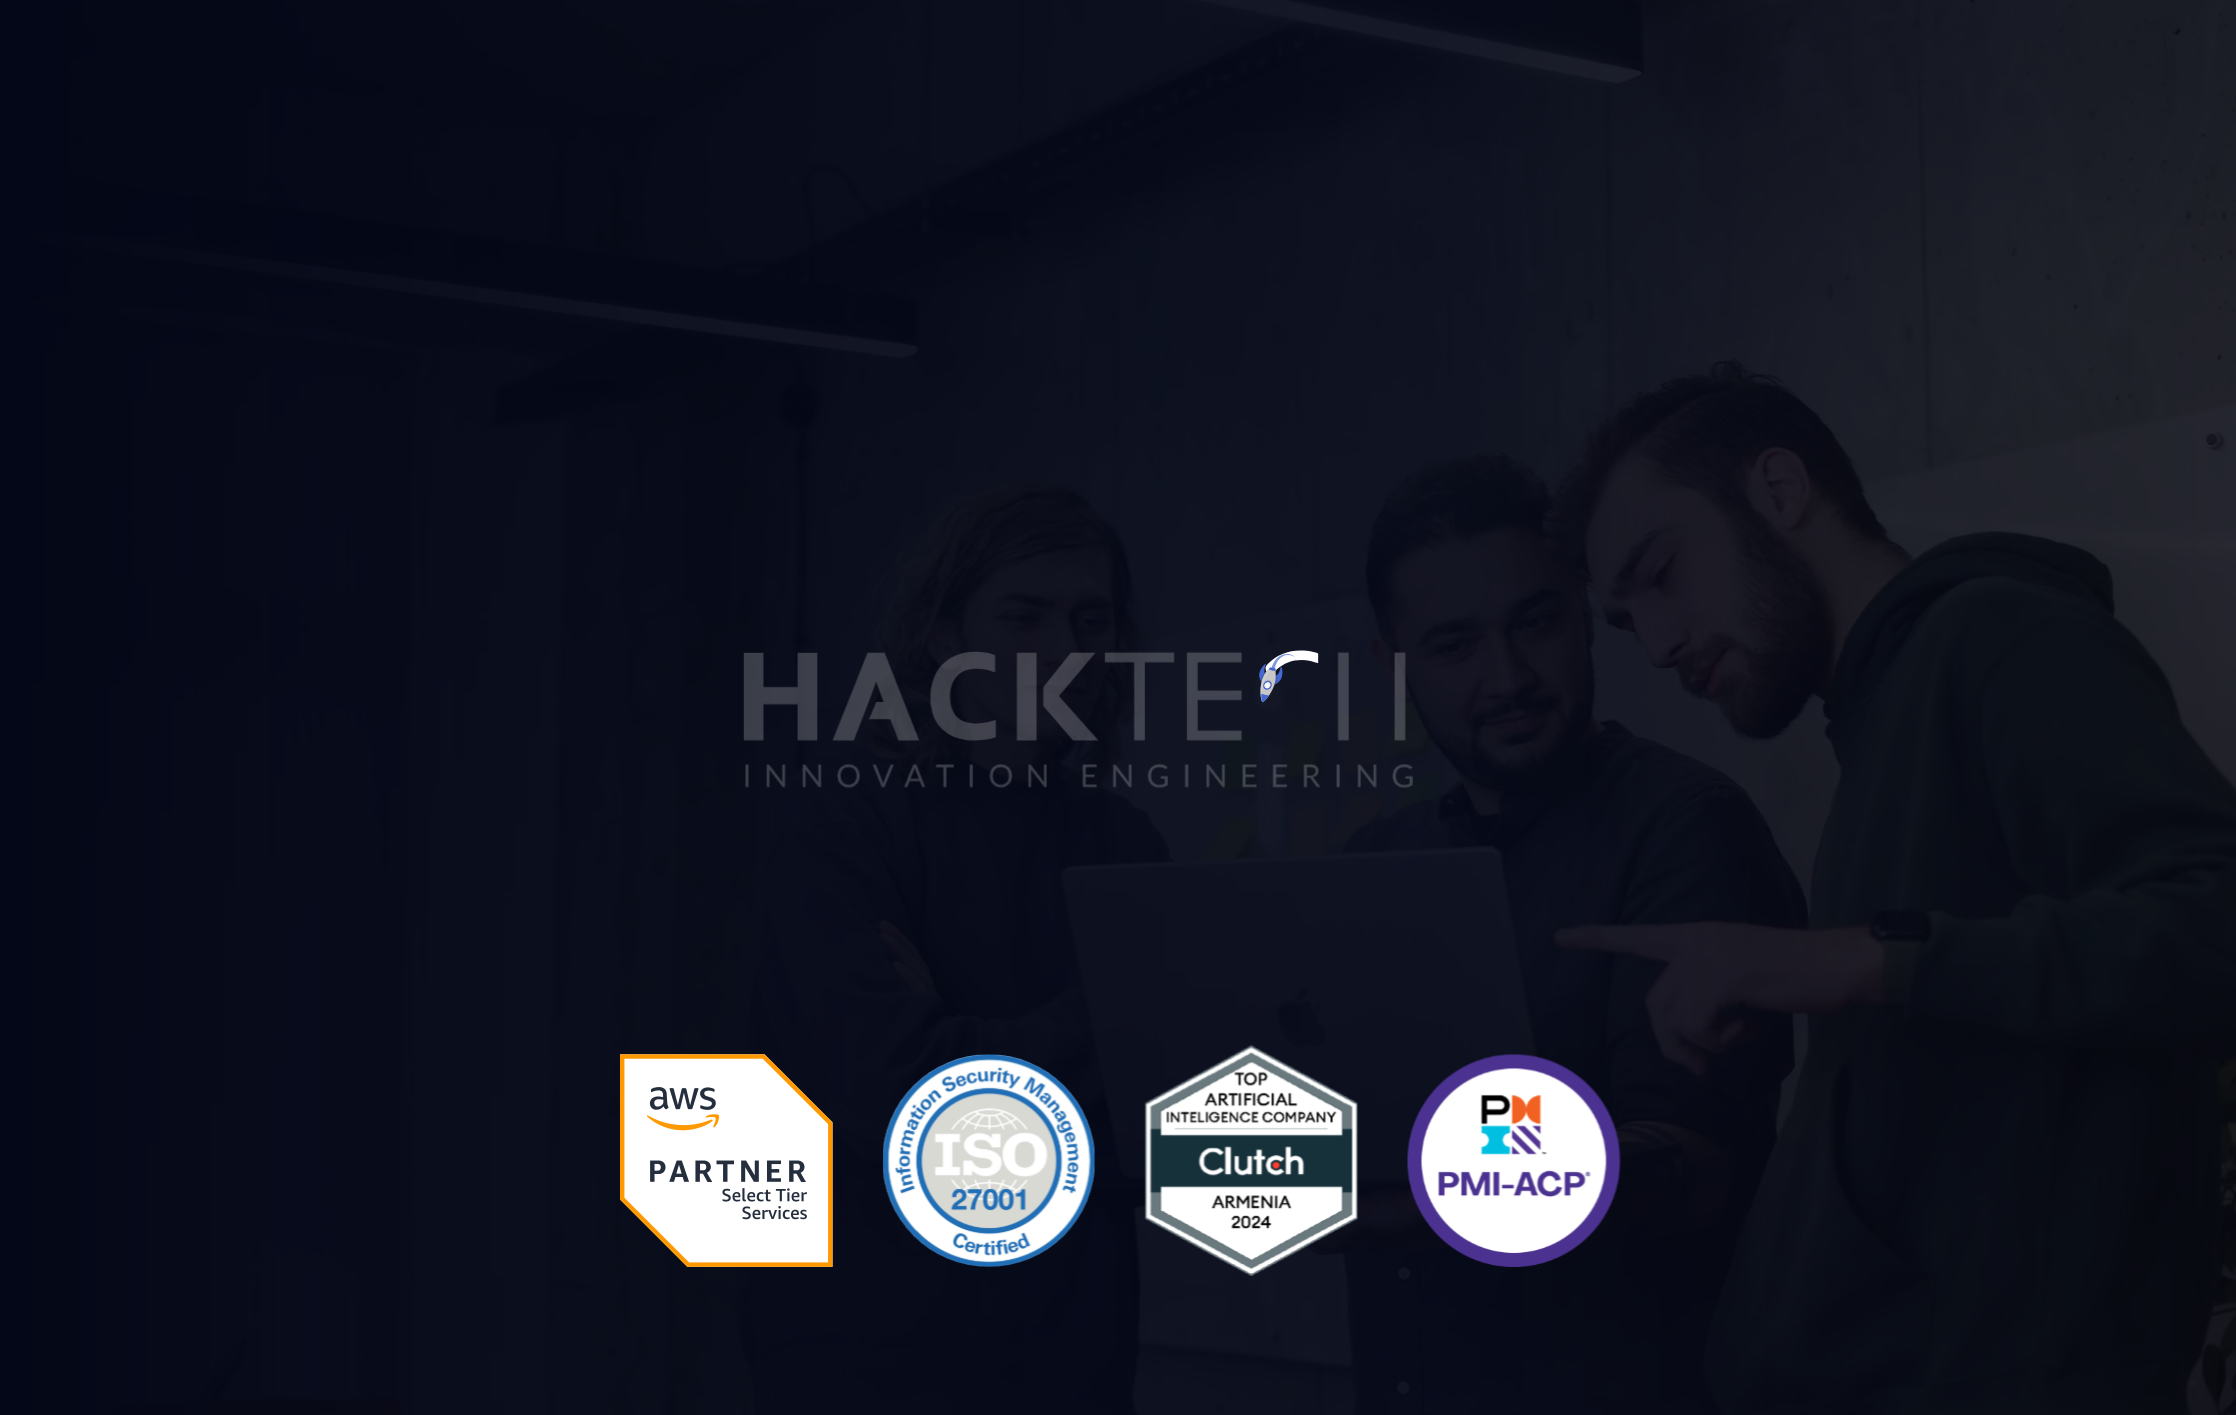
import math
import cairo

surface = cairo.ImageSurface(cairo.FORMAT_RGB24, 2236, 1415)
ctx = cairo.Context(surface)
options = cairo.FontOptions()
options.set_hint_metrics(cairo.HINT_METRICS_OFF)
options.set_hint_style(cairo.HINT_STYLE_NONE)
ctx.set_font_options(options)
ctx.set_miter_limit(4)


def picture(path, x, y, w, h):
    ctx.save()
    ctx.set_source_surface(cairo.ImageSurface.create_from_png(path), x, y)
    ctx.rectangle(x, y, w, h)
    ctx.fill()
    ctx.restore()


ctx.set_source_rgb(1, 1, 1)
ctx.paint()
picture("img1.png", 0, 0, 2236, 1415)
picture("img2.png", 743, 650, 670, 138)
picture("img3.png", 620, 1054, 213, 213)
picture("img4.png", 883, 1054, 212, 213)
picture("img5.png", 1144, 1045, 214, 231)
picture("img6.png", 1407, 1054, 214, 213)
surface.write_to_png("page.png")
